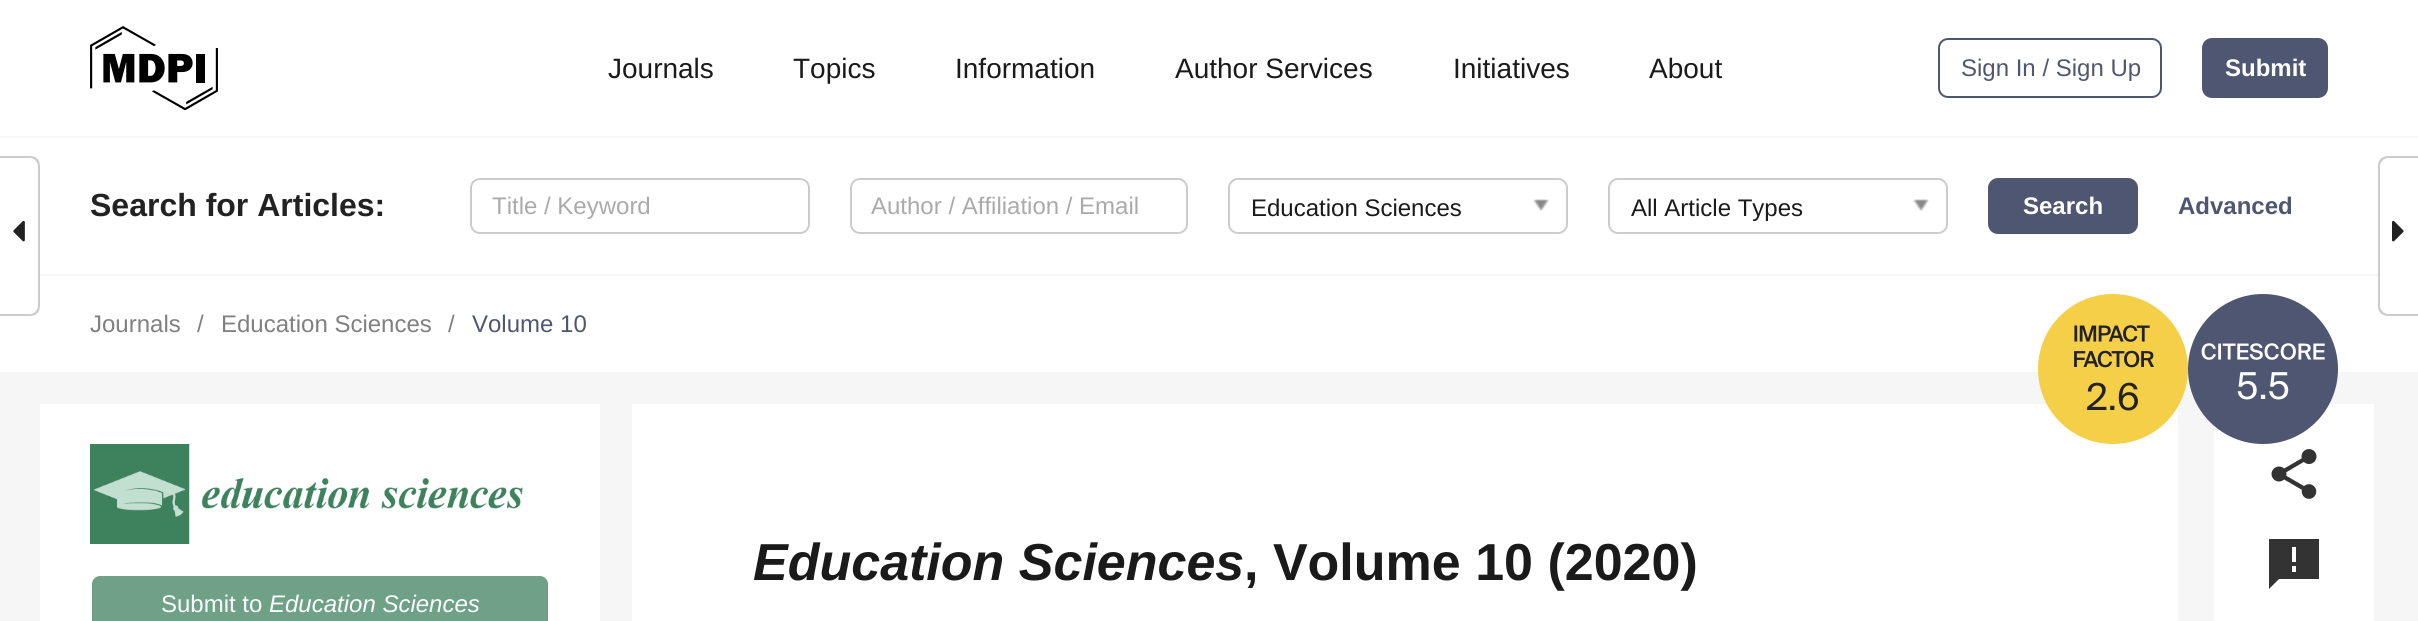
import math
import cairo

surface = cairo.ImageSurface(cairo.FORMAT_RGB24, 2418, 621)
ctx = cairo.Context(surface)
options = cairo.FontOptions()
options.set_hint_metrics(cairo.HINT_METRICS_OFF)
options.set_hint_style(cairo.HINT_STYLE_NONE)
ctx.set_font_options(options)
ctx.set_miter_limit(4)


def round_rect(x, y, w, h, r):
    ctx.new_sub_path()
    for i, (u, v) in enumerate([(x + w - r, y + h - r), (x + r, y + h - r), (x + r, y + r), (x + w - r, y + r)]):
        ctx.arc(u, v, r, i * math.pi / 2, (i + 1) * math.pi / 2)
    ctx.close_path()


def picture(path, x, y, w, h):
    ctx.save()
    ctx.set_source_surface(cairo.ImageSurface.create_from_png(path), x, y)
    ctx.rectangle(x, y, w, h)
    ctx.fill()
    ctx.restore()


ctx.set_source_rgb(0.961, 0.961, 0.961)
ctx.paint()
ctx.set_source_rgb(1, 1, 1)
ctx.rectangle(0, 138, 2418, 136)
ctx.fill()
ctx.rectangle(0, 276, 2418, 96)
ctx.fill()
ctx.new_path()
ctx.move_to(0, 158)
ctx.line_to(30, 158)
ctx.curve_to(34.5, 158, 38, 161.5, 38, 166)
ctx.line_to(38, 306)
ctx.curve_to(38, 310.5, 34.5, 314, 30, 314)
ctx.line_to(0, 314)
ctx.close_path()
ctx.fill()
ctx.set_source_rgb(0.8, 0.8, 0.8)
ctx.set_fill_rule(cairo.FILL_RULE_EVEN_ODD)
ctx.new_path()
ctx.move_to(0, 156)
ctx.line_to(30, 156)
ctx.curve_to(36, 156, 40, 160, 40, 166)
ctx.line_to(40, 306)
ctx.curve_to(40, 312, 36, 316, 30, 316)
ctx.line_to(0, 316)
ctx.close_path()
ctx.move_to(0, 158)
ctx.line_to(30, 158)
ctx.curve_to(34, 158, 38, 162, 38, 166)
ctx.line_to(38, 306)
ctx.curve_to(38, 310, 34, 314, 30, 314)
ctx.line_to(0, 314)
ctx.close_path()
ctx.fill()
picture("img1.png", 13, 220, 12, 22)
ctx.set_source_rgb(1, 1, 1)
ctx.rectangle(0, 0, 2418, 136)
ctx.fill()
picture("img2.png", 90, 26, 128, 84)
ctx.select_font_face("Liberation Sans")
ctx.set_font_size(28)
ctx.set_source_rgb(0.102, 0.102, 0.102)
ctx.move_to(608, 78)
ctx.show_text("Journals")
ctx.move_to(793, 78)
ctx.show_text("Topics")
ctx.move_to(955, 78)
ctx.show_text("Information")
ctx.move_to(1175, 78)
ctx.show_text("Author Services")
ctx.move_to(1453, 78)
ctx.show_text("Initiatives")
ctx.move_to(1649, 78)
ctx.show_text("About")
round_rect(1939, 39, 222, 58, 9)
ctx.set_source_rgb(0.31, 0.337, 0.443)
ctx.stroke()
ctx.set_font_size(24)
ctx.move_to(1961, 76)
ctx.show_text("Sign In / Sign Up")
round_rect(2203, 39, 124, 58, 9)
ctx.fill_preserve()
ctx.stroke()
ctx.select_font_face("Liberation Sans", cairo.FONT_SLANT_NORMAL, cairo.FONT_WEIGHT_BOLD)
ctx.set_source_rgb(1, 1, 1)
ctx.move_to(2225, 76)
ctx.show_text("Submit")
ctx.set_font_size(32)
ctx.set_source_rgb(0.133, 0.133, 0.133)
ctx.move_to(90, 216)
ctx.show_text("Search for Articles:")
round_rect(471, 179, 338, 54, 9)
ctx.set_source_rgb(0.8, 0.8, 0.8)
ctx.stroke()
ctx.select_font_face("Liberation Sans")
ctx.set_font_size(24)
ctx.set_source_rgb(0.667, 0.667, 0.667)
ctx.move_to(492, 214)
ctx.show_text("Title / Keyword")
round_rect(851, 179, 336, 54, 9)
ctx.set_source_rgb(0.8, 0.8, 0.8)
ctx.stroke()
ctx.set_source_rgb(0.667, 0.667, 0.667)
ctx.move_to(871, 214)
ctx.show_text("Author / Affiliation / Email")
round_rect(1229, 179, 338, 54, 9)
ctx.set_source_rgb(0.8, 0.8, 0.8)
ctx.stroke()
ctx.set_source_rgb(0.102, 0.102, 0.102)
ctx.move_to(1251, 216)
ctx.show_text("Education Sciences")
picture("img3.png", 1533, 199, 16, 12)
round_rect(1609, 179, 338, 54, 9)
ctx.set_source_rgb(0.8, 0.8, 0.8)
ctx.stroke()
ctx.set_source_rgb(0.102, 0.102, 0.102)
ctx.move_to(1631, 216)
ctx.show_text("All Article Types")
picture("img3.png", 1913, 199, 16, 12)
ctx.set_source_rgb(0.31, 0.337, 0.443)
round_rect(1989, 179, 148, 54, 9)
ctx.fill_preserve()
ctx.stroke()
ctx.select_font_face("Liberation Sans", cairo.FONT_SLANT_NORMAL, cairo.FONT_WEIGHT_BOLD)
ctx.set_source_rgb(1, 1, 1)
ctx.move_to(2023, 214)
ctx.show_text("Search")
ctx.set_source_rgb(0.31, 0.337, 0.443)
ctx.move_to(2178, 214)
ctx.show_text("Advanced")
ctx.select_font_face("Liberation Sans")
ctx.set_source_rgb(0.502, 0.502, 0.502)
ctx.move_to(90, 332)
ctx.show_text("Journals")
ctx.move_to(197, 332)
ctx.show_text("/")
ctx.move_to(221, 332)
ctx.show_text("Education Sciences")
ctx.move_to(448, 332)
ctx.show_text("/")
ctx.set_source_rgb(0.31, 0.337, 0.443)
ctx.move_to(472, 332)
ctx.show_text("Volume 10")
ctx.set_source_rgb(1, 1, 1)
ctx.rectangle(632, 404, 1546, 217)
ctx.fill()
picture("img4.png", 2038, 294, 150, 150)
ctx.select_font_face("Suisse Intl")
ctx.set_font_size(37)
ctx.set_source_rgb(0.133, 0.133, 0.133)
ctx.move_to(2086, 410)
ctx.show_text("2.6")
ctx.set_source_rgb(1, 1, 1)
ctx.rectangle(2214, 404, 160, 217)
ctx.fill()
picture("img5.png", 2188, 294, 150, 150)
ctx.move_to(2236, 399)
ctx.show_text("5.5")
ctx.select_font_face("Liberation Sans", cairo.FONT_SLANT_ITALIC, cairo.FONT_WEIGHT_BOLD)
ctx.set_font_size(52)
ctx.set_source_rgb(0.102, 0.102, 0.102)
ctx.move_to(753, 580)
ctx.show_text("Education Sciences")
ctx.select_font_face("Liberation Sans", cairo.FONT_SLANT_NORMAL, cairo.FONT_WEIGHT_BOLD)
ctx.move_to(1244, 580)
ctx.show_text(", Volume 10 (2020)")
picture("img6.png", 2271, 449, 46, 50)
ctx.set_source_rgb(0.2, 0.2, 0.2)
ctx.set_fill_rule(cairo.FILL_RULE_WINDING)
ctx.new_path()
ctx.move_to(2319, 539)
ctx.line_to(2269, 539)
ctx.line_to(2269, 589)
ctx.line_to(2279, 579)
ctx.line_to(2319, 579)
ctx.close_path()
ctx.move_to(2296, 562)
ctx.line_to(2292, 562)
ctx.line_to(2292, 547)
ctx.line_to(2296, 547)
ctx.close_path()
ctx.move_to(2296, 572)
ctx.line_to(2292, 572)
ctx.line_to(2292, 566)
ctx.line_to(2296, 566)
ctx.close_path()
ctx.fill()
ctx.set_source_rgb(1, 1, 1)
ctx.rectangle(40, 404, 560, 217)
ctx.fill()
picture("img7.png", 90, 444, 433, 100)
ctx.set_source_rgb(0.431, 0.631, 0.525)
round_rect(91, 575, 458, 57, 9)
ctx.fill_preserve()
ctx.set_source_rgb(1, 1, 1)
ctx.stroke()
ctx.select_font_face("Liberation Sans")
ctx.set_font_size(24)
ctx.move_to(161, 612)
ctx.show_text("Submit to")
ctx.select_font_face("Liberation Sans", cairo.FONT_SLANT_ITALIC)
ctx.move_to(269, 612)
ctx.show_text("Education Sciences")
ctx.new_path()
ctx.move_to(2388, 158)
ctx.line_to(2418, 158)
ctx.line_to(2418, 314)
ctx.line_to(2388, 314)
ctx.curve_to(2383.5, 314, 2380, 310.5, 2380, 306)
ctx.line_to(2380, 166)
ctx.curve_to(2380, 161.5, 2383.5, 158, 2388, 158)
ctx.close_path()
ctx.fill()
ctx.set_source_rgb(0.8, 0.8, 0.8)
ctx.set_fill_rule(cairo.FILL_RULE_EVEN_ODD)
ctx.new_path()
ctx.move_to(2388, 156)
ctx.line_to(2418, 156)
ctx.line_to(2418, 316)
ctx.line_to(2388, 316)
ctx.curve_to(2382, 316, 2378, 312, 2378, 306)
ctx.line_to(2378, 166)
ctx.curve_to(2378, 160, 2382, 156, 2388, 156)
ctx.close_path()
ctx.move_to(2388, 158)
ctx.line_to(2418, 158)
ctx.line_to(2418, 314)
ctx.line_to(2388, 314)
ctx.curve_to(2384, 314, 2380, 310, 2380, 306)
ctx.line_to(2380, 166)
ctx.curve_to(2380, 162, 2384, 158, 2388, 158)
ctx.close_path()
ctx.fill()
picture("img8.png", 2392, 220, 12, 22)
surface.write_to_png("page.png")
